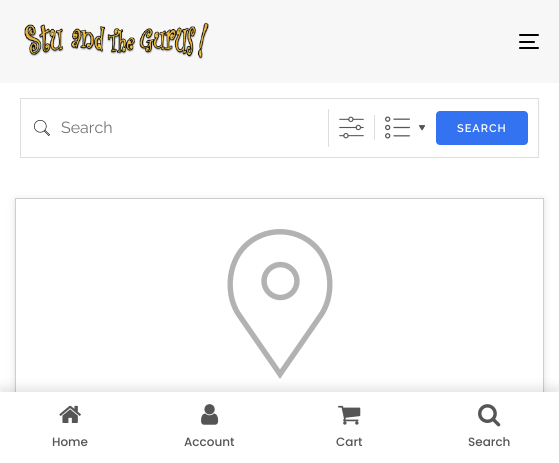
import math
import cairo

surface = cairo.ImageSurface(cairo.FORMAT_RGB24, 559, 463)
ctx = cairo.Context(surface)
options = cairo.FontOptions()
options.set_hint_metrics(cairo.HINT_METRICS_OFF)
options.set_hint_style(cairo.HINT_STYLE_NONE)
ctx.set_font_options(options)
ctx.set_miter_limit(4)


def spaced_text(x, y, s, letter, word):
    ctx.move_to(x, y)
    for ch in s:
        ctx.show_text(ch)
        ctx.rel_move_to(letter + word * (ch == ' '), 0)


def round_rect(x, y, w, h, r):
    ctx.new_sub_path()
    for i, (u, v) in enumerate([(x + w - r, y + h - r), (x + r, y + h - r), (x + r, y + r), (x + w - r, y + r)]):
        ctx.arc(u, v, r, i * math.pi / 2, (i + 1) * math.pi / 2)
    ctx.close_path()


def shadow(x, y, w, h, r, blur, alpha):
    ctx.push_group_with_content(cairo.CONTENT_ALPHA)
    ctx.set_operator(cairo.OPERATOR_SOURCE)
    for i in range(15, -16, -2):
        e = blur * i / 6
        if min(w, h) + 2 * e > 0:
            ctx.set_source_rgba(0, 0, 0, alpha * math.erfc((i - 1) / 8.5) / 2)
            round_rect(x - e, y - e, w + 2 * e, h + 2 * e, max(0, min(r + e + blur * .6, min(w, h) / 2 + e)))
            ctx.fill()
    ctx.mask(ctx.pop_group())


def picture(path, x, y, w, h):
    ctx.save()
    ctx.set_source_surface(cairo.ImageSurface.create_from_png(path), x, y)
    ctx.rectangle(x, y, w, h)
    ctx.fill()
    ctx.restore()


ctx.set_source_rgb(1, 1, 1)
ctx.paint()
ctx.set_source_rgb(0.965, 0.965, 0.965)
ctx.rectangle(0, 0, 559, 83)
ctx.fill()
picture("img1.png", 24, 22, 185, 38)
ctx.set_source_rgb(0, 0, 0)
round_rect(519, 34, 20, 2, 1)
ctx.fill()
round_rect(519, 41, 16, 2, 1)
ctx.fill()
round_rect(519, 47, 20, 2, 1)
ctx.fill()
ctx.rectangle(20.5, 98.5, 518, 59)
ctx.set_source_rgb(0.871, 0.871, 0.871)
ctx.set_line_width(1)
ctx.stroke()
ctx.rectangle(328, 109, 1, 38)
ctx.fill()
picture("img2.png", 34, 120, 16, 16)
ctx.select_font_face("Raleway")
ctx.set_font_size(16)
ctx.set_source_rgb(0.459, 0.459, 0.459)
ctx.move_to(61, 133)
ctx.show_text("Search")
picture("img3.png", 339, 116, 25, 23)
ctx.set_source_rgb(0.871, 0.871, 0.871)
ctx.rectangle(374, 115, 1, 25)
ctx.fill()
picture("img4.png", 419, 125, 7, 6)
picture("img5.png", 385, 116, 25, 23)
ctx.set_source_rgb(0.2, 0.447, 0.941)
round_rect(436.5, 111.5, 91, 33, 3.5)
ctx.fill_preserve()
ctx.stroke()
ctx.select_font_face("Raleway SemiBold")
ctx.set_font_size(11)
ctx.set_source_rgb(1, 1, 1)
spaced_text(457, 132, "SEARCH", 1, 0)
ctx.save()
ctx.set_fill_rule(cairo.FILL_RULE_EVEN_ODD)
ctx.new_path()
ctx.move_to(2, 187)
ctx.line_to(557, 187)
ctx.line_to(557, 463)
ctx.line_to(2, 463)
ctx.close_path()
ctx.move_to(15, 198)
ctx.line_to(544, 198)
ctx.line_to(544, 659)
ctx.line_to(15, 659)
ctx.close_path()
ctx.clip()
ctx.set_source_rgb(0.388, 0.388, 0.388)
shadow(15, 200, 529, 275, 0, 4, 0.2)
ctx.restore()
ctx.rectangle(15.5, 198.5, 528, 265)
ctx.set_source_rgb(0.804, 0.804, 0.804)
ctx.stroke()
picture("img6.png", 227, 229, 106, 150)
ctx.set_source_rgb(0, 0, 0)
shadow(0, 387, 559, 71, 0, 5, 0.1)
ctx.set_source_rgb(1, 1, 1)
ctx.rectangle(0, 392, 559, 71)
ctx.fill()
picture("img7.png", 59, 405, 22, 18)
ctx.select_font_face("Poppins Medium")
ctx.set_font_size(12)
ctx.set_source_rgb(0.333, 0.333, 0.333)
ctx.move_to(52, 446)
ctx.show_text("Home")
picture("img8.png", 201, 404, 18, 21)
ctx.move_to(184, 446)
ctx.show_text("Account")
picture("img9.png", 338, 405, 23, 20)
ctx.move_to(336, 446)
ctx.show_text("Cart")
picture("img10.png", 478, 404, 23, 23)
ctx.move_to(468, 446)
ctx.show_text("Search")
surface.write_to_png("page.png")
